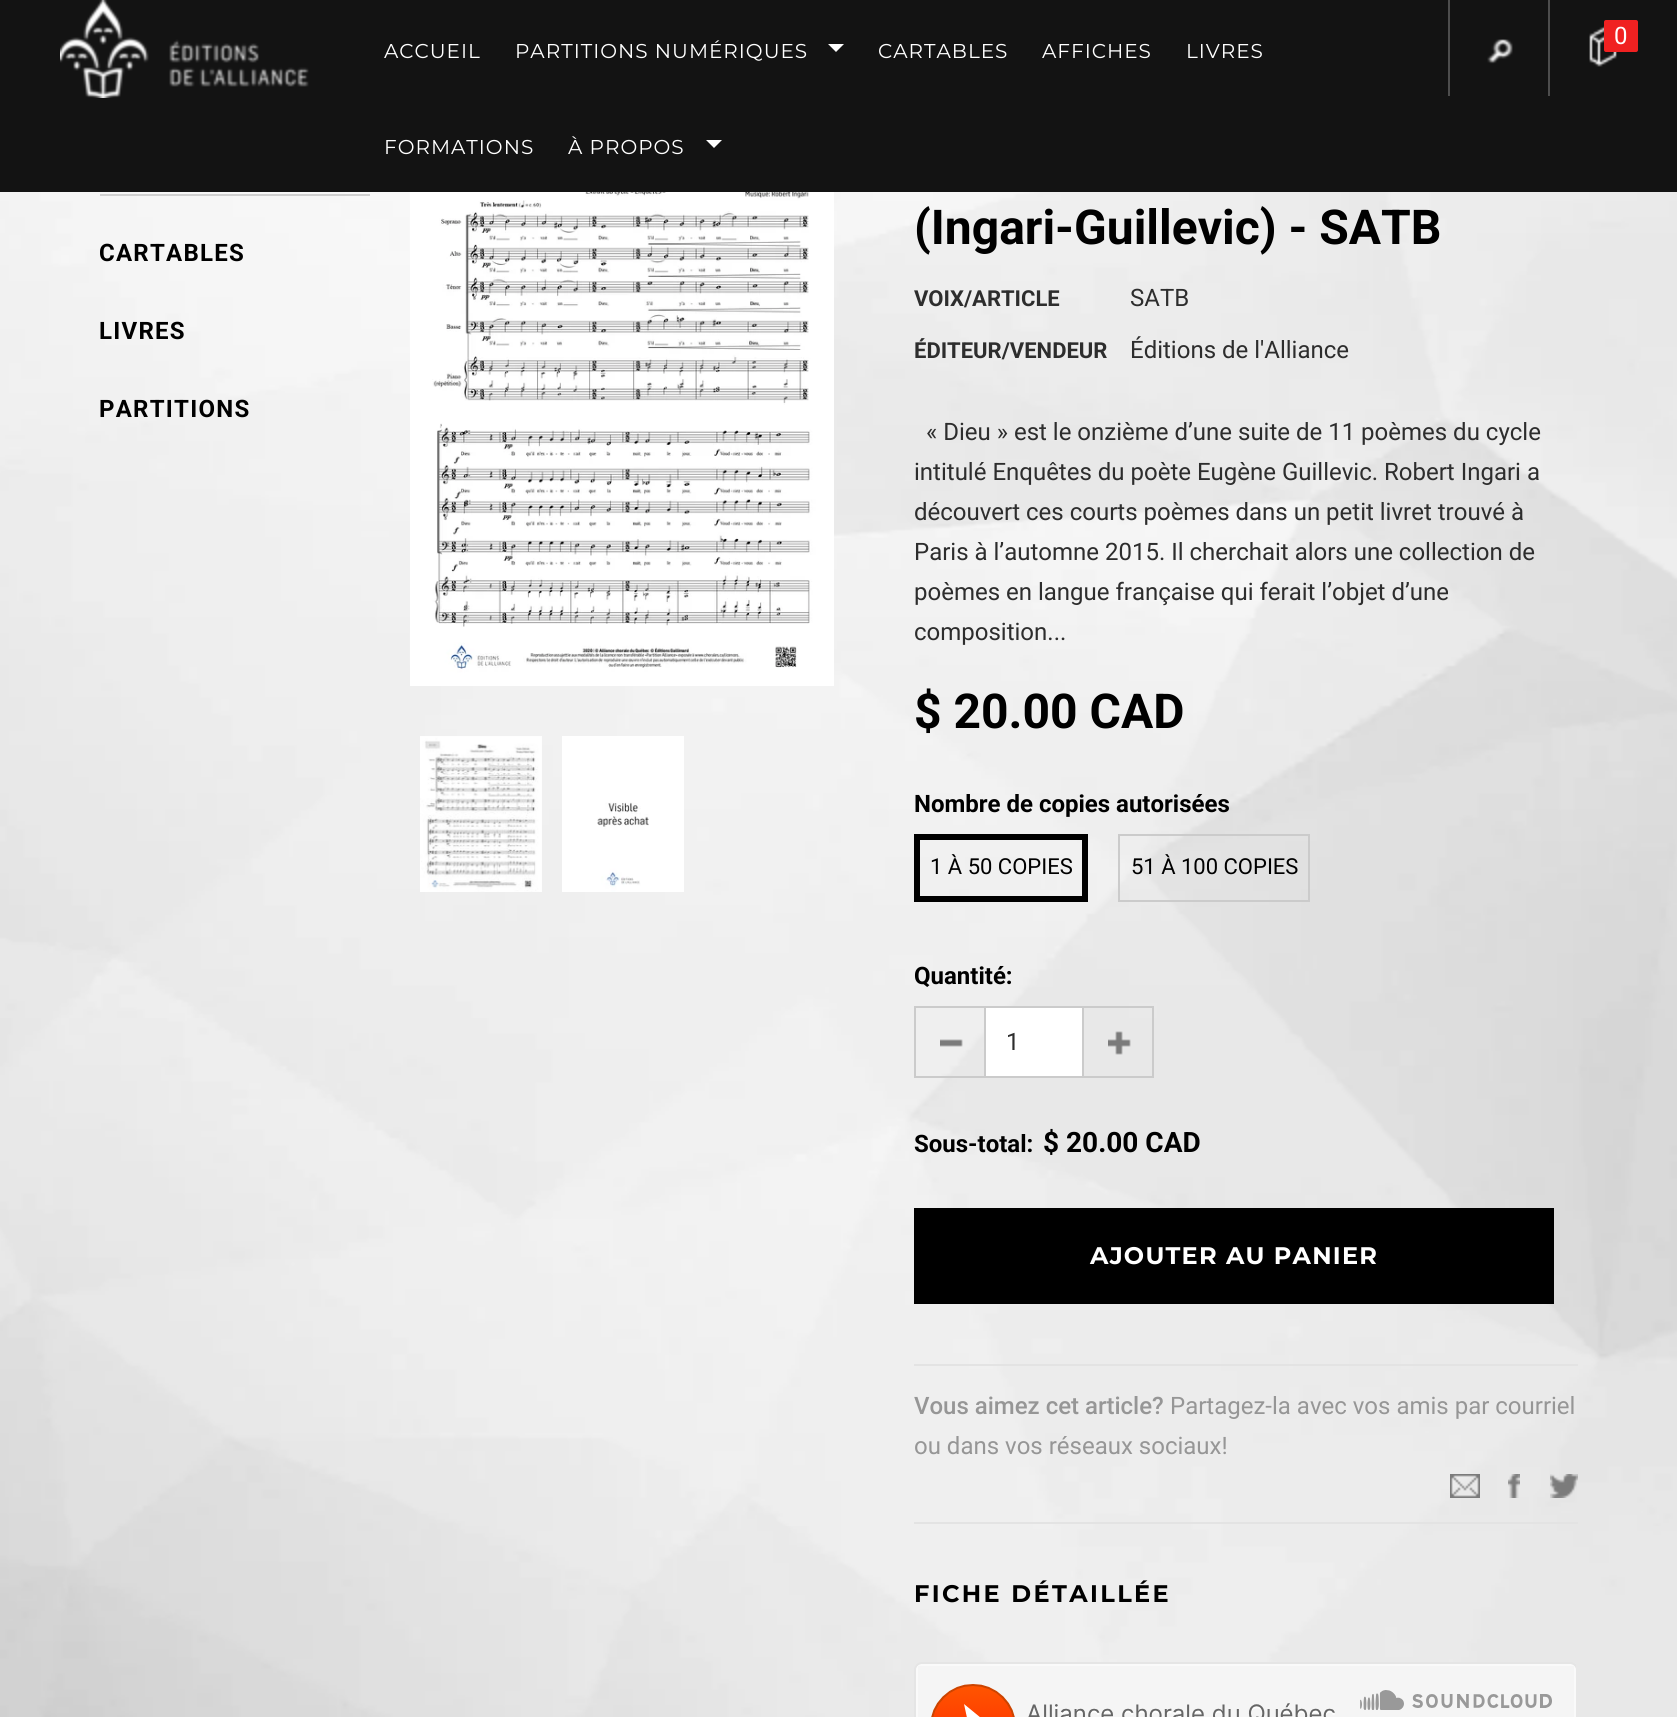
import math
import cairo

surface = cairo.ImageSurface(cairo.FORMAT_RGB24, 1677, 1717)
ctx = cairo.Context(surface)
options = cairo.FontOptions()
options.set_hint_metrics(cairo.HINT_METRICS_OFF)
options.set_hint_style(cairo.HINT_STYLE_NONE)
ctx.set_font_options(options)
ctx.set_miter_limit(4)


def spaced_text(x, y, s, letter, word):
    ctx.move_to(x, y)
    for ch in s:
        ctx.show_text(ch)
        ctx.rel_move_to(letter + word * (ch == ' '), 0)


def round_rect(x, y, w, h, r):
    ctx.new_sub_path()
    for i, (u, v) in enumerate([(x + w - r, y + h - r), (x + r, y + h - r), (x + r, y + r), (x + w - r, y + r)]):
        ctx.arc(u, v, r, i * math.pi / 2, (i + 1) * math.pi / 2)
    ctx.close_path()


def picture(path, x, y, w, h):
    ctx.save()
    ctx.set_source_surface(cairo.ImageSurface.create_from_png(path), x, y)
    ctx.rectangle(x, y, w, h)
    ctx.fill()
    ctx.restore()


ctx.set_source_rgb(1, 1, 1)
ctx.paint()
picture("img1.png", 0, 192, 1677, 1525)
ctx.set_source_rgb(0.078, 0.078, 0.078)
ctx.rectangle(0, 0, 1677, 192)
ctx.fill()
picture("img2.png", 1487, 39, 26, 25)
ctx.set_source_rgb(0.302, 0.302, 0.302)
ctx.rectangle(1448, 0, 2, 96)
ctx.fill()
picture("img3.png", 1589, 26, 28, 41)
ctx.rectangle(1548, 0, 2, 96)
ctx.fill()
ctx.set_source_rgb(0.941, 0.129, 0.129)
round_rect(1604, 20, 34, 32, 2)
ctx.fill()
ctx.select_font_face("Roboto")
ctx.set_font_size(24)
ctx.set_source_rgb(1, 1, 1)
ctx.move_to(1614, 44)
ctx.show_text("0")
picture("img4.png", 60, 0, 249, 98)
ctx.select_font_face("Montserrat")
ctx.set_font_size(20)
spaced_text(384, 58, "ACCUEIL", 1, 0)
spaced_text(515, 58, "PARTITIONS NUMÉRIQUES", 1, 0)
ctx.new_path()
ctx.move_to(828, 44)
ctx.line_to(844, 44)
ctx.line_to(836, 52)
ctx.close_path()
ctx.fill()
spaced_text(878, 58, "CARTABLES", 1, 0)
spaced_text(1042, 58, "AFFICHES", 1, 0)
spaced_text(1186, 58, "LIVRES", 1, 0)
spaced_text(384, 154, "FORMATIONS", 1, 0)
spaced_text(568, 154, "À PROPOS", 1, 0)
ctx.new_path()
ctx.move_to(706, 140)
ctx.line_to(722, 140)
ctx.line_to(714, 148)
ctx.close_path()
ctx.fill()
ctx.set_source_rgb(0.816, 0.816, 0.816)
ctx.rectangle(100, 194, 270, 2)
ctx.fill()
ctx.select_font_face("Roboto", cairo.FONT_SLANT_NORMAL, cairo.FONT_WEIGHT_BOLD)
ctx.set_font_size(24)
ctx.set_source_rgb(0, 0, 0)
spaced_text(99, 261, "CARTABLES", 1.25, 0)
spaced_text(99, 339, "LIVRES", 1.25, 0)
spaced_text(99, 417, "PARTITIONS", 1.25, 0)
picture("img5.png", 410, 192, 424, 494)
picture("img6.png", 420, 736, 122, 156)
picture("img7.png", 562, 736, 122, 156)
ctx.set_font_size(48)
ctx.move_to(914, 244)
ctx.show_text("(Ingari-Guillevic) - SATB")
ctx.set_font_size(22)
ctx.set_source_rgb(0.176, 0.176, 0.176)
ctx.move_to(914, 306)
ctx.show_text("VOIX/ARTICLE")
ctx.select_font_face("Roboto")
ctx.set_font_size(24)
ctx.move_to(1130, 306)
ctx.show_text("SATB")
ctx.select_font_face("Roboto", cairo.FONT_SLANT_NORMAL, cairo.FONT_WEIGHT_BOLD)
ctx.set_font_size(22)
ctx.move_to(914, 358)
ctx.show_text("ÉDITEUR/VENDEUR")
ctx.select_font_face("Roboto")
ctx.set_font_size(24)
ctx.move_to(1130, 358)
ctx.show_text("Éditions de l'Alliance")
ctx.move_to(926, 440)
ctx.show_text("« Dieu » est le onzième d’une suite de 11 poèmes du cycle")
ctx.move_to(914, 480)
ctx.show_text("intitulé Enquêtes du poète Eugène Guillevic. Robert Ingari a")
ctx.move_to(914, 520)
ctx.show_text("découvert ces courts poèmes dans un petit livret trouvé à")
ctx.move_to(914, 560)
ctx.show_text("Paris à l’automne 2015. Il cherchait alors une collection de")
ctx.move_to(914, 600)
ctx.show_text("poèmes en langue française qui ferait l’objet d’une")
ctx.move_to(914, 640)
ctx.show_text("composition...")
ctx.select_font_face("Roboto", cairo.FONT_SLANT_NORMAL, cairo.FONT_WEIGHT_BOLD)
ctx.set_font_size(48)
ctx.set_source_rgb(0, 0, 0)
ctx.move_to(914, 728)
ctx.show_text("$ 20.00 CAD")
ctx.set_font_size(24)
ctx.move_to(914, 812)
ctx.show_text("Nombre de copies autorisées")
ctx.rectangle(917, 837, 168, 62)
ctx.set_line_width(6)
ctx.stroke()
ctx.select_font_face("Roboto")
ctx.set_font_size(22)
ctx.move_to(930, 874)
ctx.show_text("1 À 50 COPIES")
ctx.rectangle(1119, 835, 190, 66)
ctx.set_source_rgb(0.796, 0.796, 0.796)
ctx.set_line_width(2)
ctx.stroke()
ctx.set_source_rgb(0, 0, 0)
ctx.move_to(1131, 874)
ctx.show_text("51 À 100 COPIES")
ctx.select_font_face("Roboto", cairo.FONT_SLANT_NORMAL, cairo.FONT_WEIGHT_BOLD)
ctx.set_font_size(24)
ctx.move_to(914, 984)
ctx.show_text("Quantité:")
picture("img8.png", 940, 1039, 23, 8)
ctx.set_source_rgb(0.796, 0.796, 0.796)
ctx.rectangle(914, 1006, 70, 2)
ctx.fill()
ctx.rectangle(914, 1076, 70, 2)
ctx.fill()
ctx.rectangle(914, 1006, 2, 72)
ctx.fill()
ctx.set_source_rgb(1, 1, 1)
ctx.rectangle(985, 1007, 98, 70)
ctx.fill_preserve()
ctx.set_source_rgb(0.796, 0.796, 0.796)
ctx.stroke()
ctx.select_font_face("Roboto")
ctx.set_source_rgb(0.176, 0.176, 0.176)
ctx.move_to(1006, 1050)
ctx.show_text("1")
picture("img9.png", 1108, 1031, 23, 24)
ctx.set_source_rgb(0.796, 0.796, 0.796)
ctx.rectangle(1084, 1006, 70, 2)
ctx.fill()
ctx.rectangle(1152, 1006, 2, 72)
ctx.fill()
ctx.rectangle(1084, 1076, 70, 2)
ctx.fill()
ctx.select_font_face("Roboto", cairo.FONT_SLANT_NORMAL, cairo.FONT_WEIGHT_BOLD)
ctx.set_source_rgb(0, 0, 0)
ctx.move_to(914, 1152)
ctx.show_text("Sous-total:")
ctx.set_font_size(28)
ctx.move_to(1043, 1152)
ctx.show_text("$ 20.00 CAD")
ctx.rectangle(914, 1208, 640, 96)
ctx.fill()
ctx.select_font_face("Montserrat", cairo.FONT_SLANT_NORMAL, cairo.FONT_WEIGHT_BOLD)
ctx.set_font_size(24)
ctx.set_source_rgb(1, 1, 1)
spaced_text(1090, 1264, "AJOUTER AU PANIER", 1.25, 0)
ctx.set_source_rgb(0.89, 0.89, 0.89)
ctx.rectangle(914, 1364, 664, 2)
ctx.fill()
ctx.rectangle(914, 1522, 664, 2)
ctx.fill()
ctx.select_font_face("Roboto Medium")
ctx.set_source_rgb(0.588, 0.588, 0.588)
ctx.move_to(914, 1414)
ctx.show_text("Vous aimez cet article?")
ctx.select_font_face("Roboto")
ctx.move_to(1170, 1414)
ctx.show_text("Partagez-la avec vos amis par courriel")
ctx.move_to(914, 1454)
ctx.show_text("ou dans vos réseaux sociaux!")
picture("img10.png", 1450, 1474, 30, 24)
picture("img11.png", 1508, 1474, 12, 24)
picture("img12.png", 1550, 1474, 28, 24)
ctx.select_font_face("Montserrat", cairo.FONT_SLANT_NORMAL, cairo.FONT_WEIGHT_BOLD)
ctx.set_source_rgb(0, 0, 0)
spaced_text(914, 1602, "FICHE DÉTAILLÉE", 2.4, 0)
picture("img13.png", 914, 1662, 662, 55)
surface.write_to_png("page.png")
